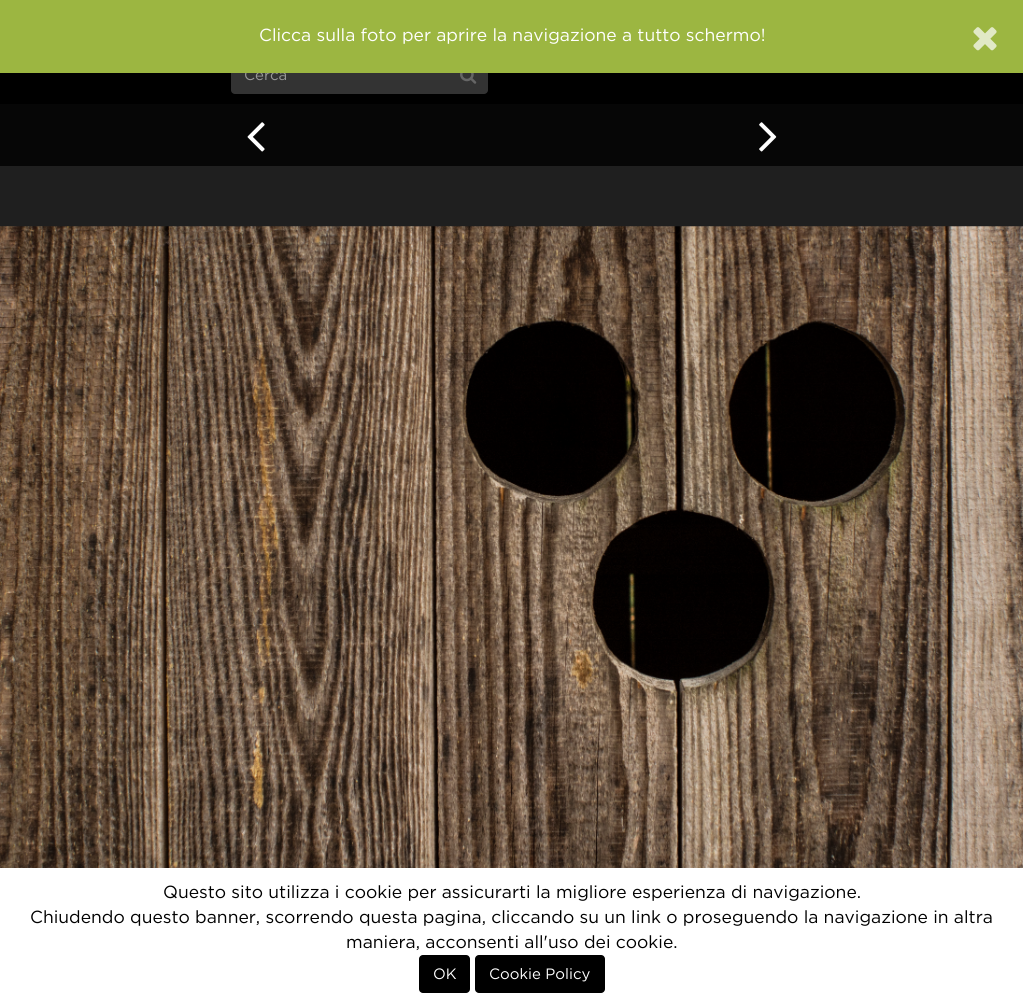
import math
import cairo

surface = cairo.ImageSurface(cairo.FORMAT_RGB24, 1023, 1005)
ctx = cairo.Context(surface)
options = cairo.FontOptions()
options.set_hint_metrics(cairo.HINT_METRICS_OFF)
options.set_hint_style(cairo.HINT_STYLE_NONE)
ctx.set_font_options(options)
ctx.set_miter_limit(4)


def round_rect(x, y, w, h, r):
    ctx.new_sub_path()
    for i, (u, v) in enumerate([(x + w - r, y + h - r), (x + r, y + h - r), (x + r, y + r), (x + w - r, y + r)]):
        ctx.arc(u, v, r, i * math.pi / 2, (i + 1) * math.pi / 2)
    ctx.close_path()


def picture(path, x, y, w, h):
    ctx.save()
    ctx.set_source_surface(cairo.ImageSurface.create_from_png(path), x, y)
    ctx.rectangle(x, y, w, h)
    ctx.fill()
    ctx.restore()


ctx.set_source_rgb(0.122, 0.122, 0.122)
ctx.paint()
ctx.set_source_rgb(0, 0, 0)
ctx.rectangle(0, 73, 1023, 31)
ctx.fill()
ctx.set_source_rgb(0.2, 0.2, 0.2)
round_rect(231, 56, 257, 38, 4)
ctx.fill()
ctx.select_font_face("Gotham")
ctx.set_font_size(15)
ctx.set_source_rgb(0.6, 0.6, 0.6)
ctx.move_to(244, 80)
ctx.show_text("Cerca")
ctx.set_source_rgb(0.612, 0.714, 0.255)
ctx.rectangle(0, 0, 1023, 73)
ctx.fill()
ctx.set_font_size(17.5)
ctx.set_source_rgb(1, 1, 1)
ctx.move_to(259, 41)
ctx.show_text("Clicca sulla foto per aprire la navigazione a tutto schermo!")
picture("img1.png", 973, 27, 24, 24)
ctx.set_source_rgb(0.024, 0.024, 0.024)
ctx.rectangle(0, 104, 1023, 62)
ctx.fill()
picture("img2.png", 247, 122, 18, 30)
picture("img3.png", 759, 122, 18, 30)
picture("img4.png", 0, 226, 1023, 642)
picture("img5.png", 460, 73, 17, 11)
ctx.set_source_rgb(1, 1, 1)
ctx.rectangle(0, 868, 1023, 137)
ctx.fill()
ctx.set_source_rgb(0, 0, 0)
ctx.move_to(163, 898)
ctx.show_text("Questo sito utilizza i cookie per assicurarti la migliore esperienza di navigazione.")
ctx.move_to(30, 923)
ctx.show_text("Chiudendo questo banner, scorrendo questa pagina, cliccando su un link o proseguendo la navigazione in altra")
ctx.move_to(346, 948)
ctx.show_text("maniera, acconsenti all'uso dei cookie.")
round_rect(419, 955, 51, 38, 4)
ctx.fill()
ctx.set_font_size(15)
ctx.set_source_rgb(1, 1, 1)
ctx.move_to(433, 979)
ctx.show_text("OK")
ctx.set_source_rgb(0, 0, 0)
round_rect(475, 955, 130, 38, 4)
ctx.fill()
ctx.set_source_rgb(1, 1, 1)
ctx.move_to(489, 979)
ctx.show_text("Cookie Policy")
surface.write_to_png("page.png")
